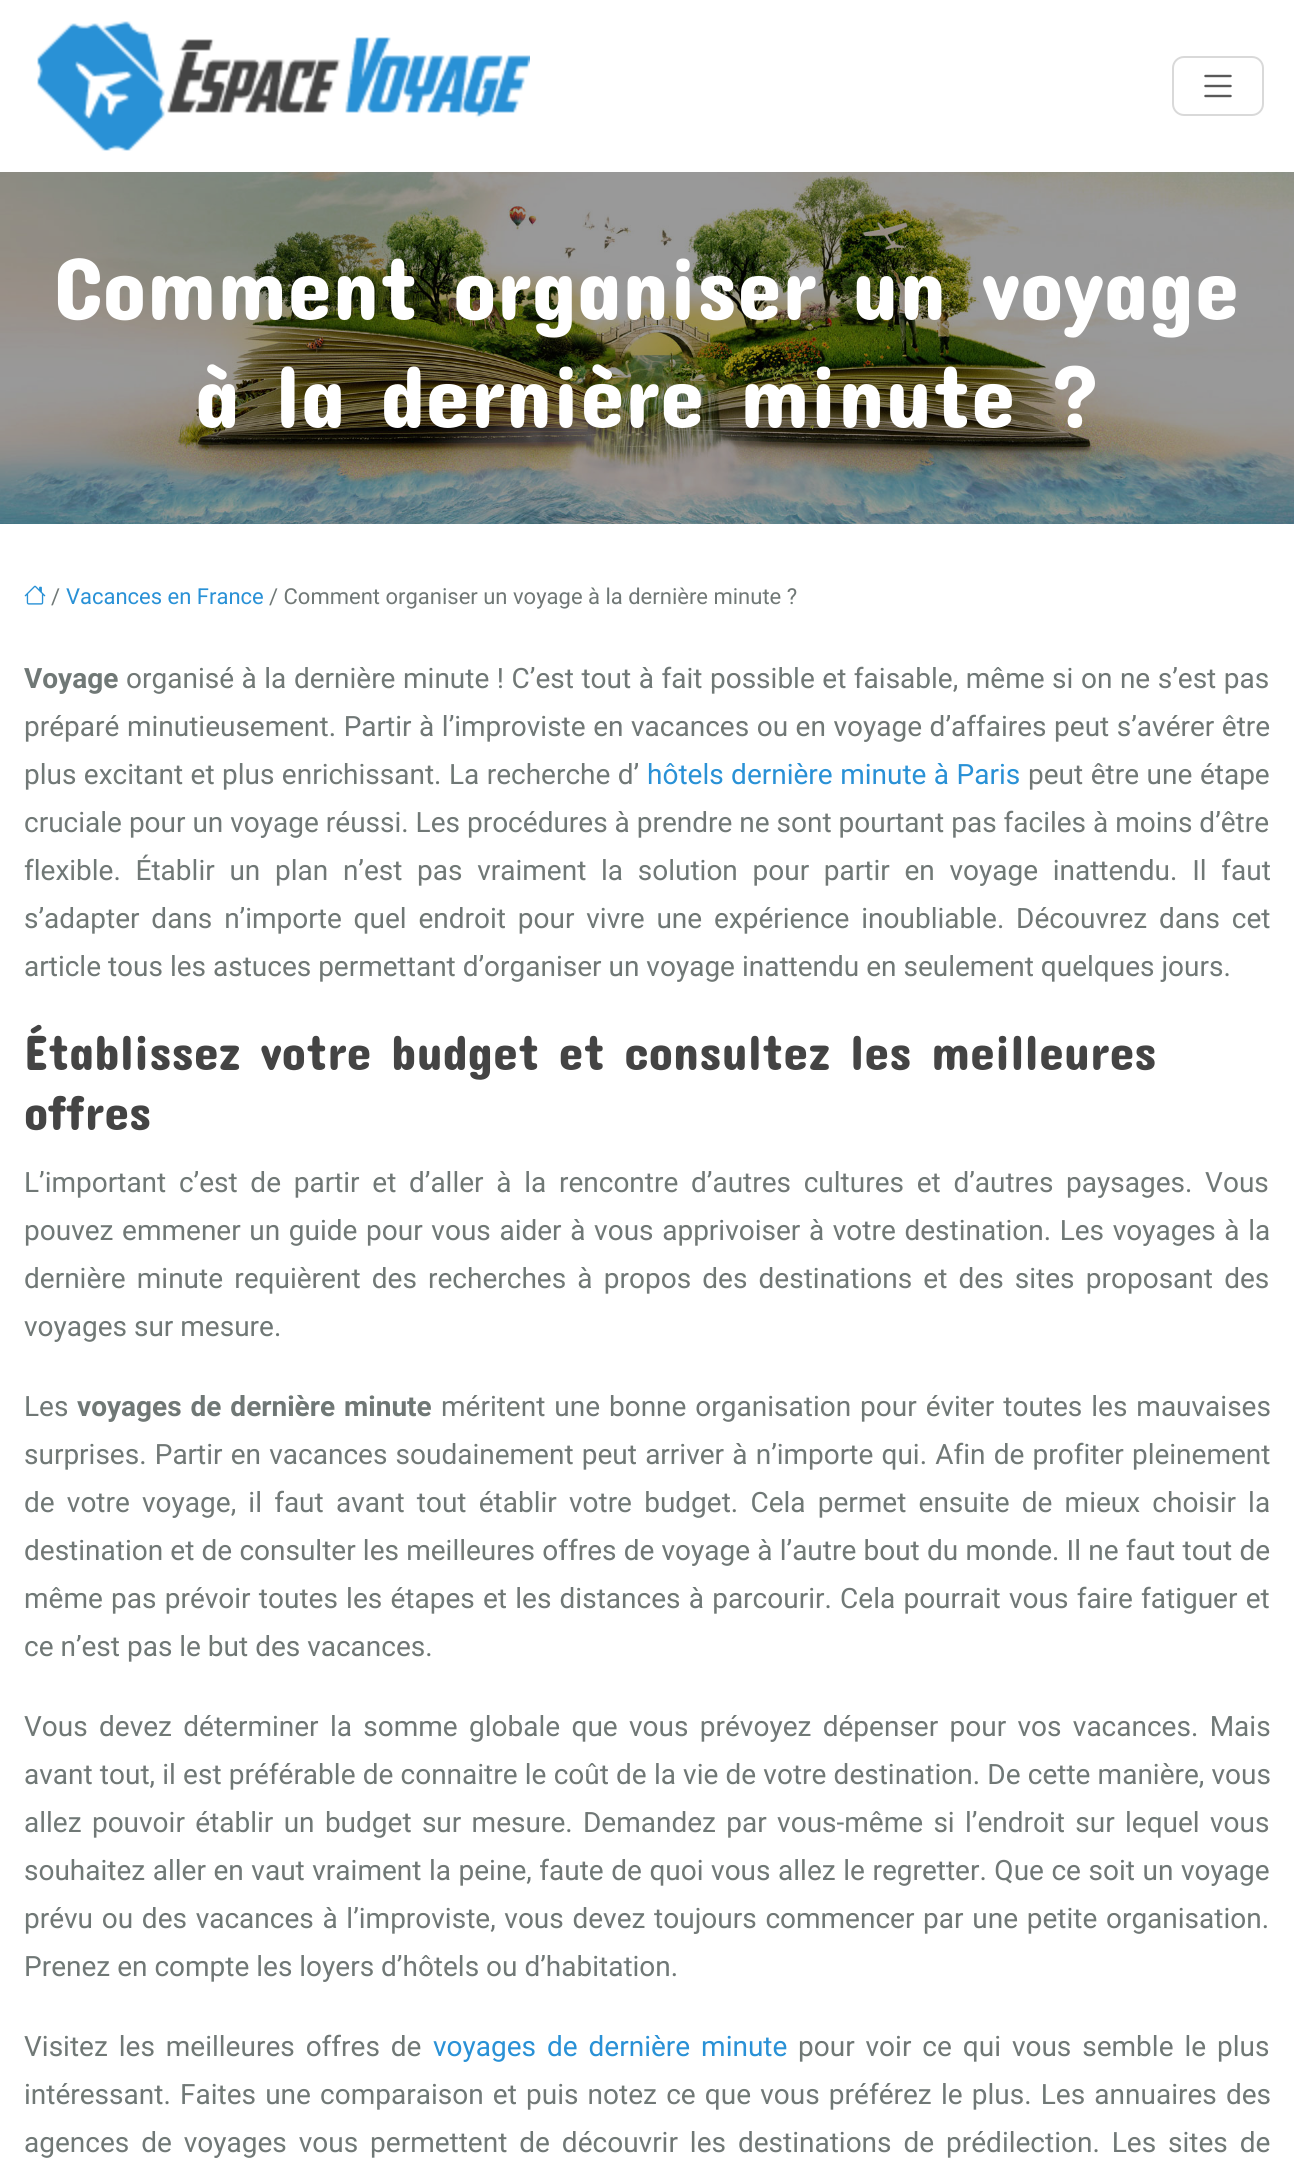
import math
import cairo

surface = cairo.ImageSurface(cairo.FORMAT_RGB24, 1294, 2169)
ctx = cairo.Context(surface)
options = cairo.FontOptions()
options.set_hint_metrics(cairo.HINT_METRICS_OFF)
options.set_hint_style(cairo.HINT_STYLE_NONE)
ctx.set_font_options(options)
ctx.set_miter_limit(4)


def spaced_text(x, y, s, letter, word):
    ctx.move_to(x, y)
    for ch in s:
        ctx.show_text(ch)
        ctx.rel_move_to(letter + word * (ch == ' '), 0)


def round_rect(x, y, w, h, r):
    ctx.new_sub_path()
    for i, (u, v) in enumerate([(x + w - r, y + h - r), (x + r, y + h - r), (x + r, y + r), (x + w - r, y + r)]):
        ctx.arc(u, v, r, i * math.pi / 2, (i + 1) * math.pi / 2)
    ctx.close_path()


def picture(path, x, y, w, h):
    ctx.save()
    ctx.set_source_surface(cairo.ImageSurface.create_from_png(path), x, y)
    ctx.rectangle(x, y, w, h)
    ctx.fill()
    ctx.restore()


ctx.set_source_rgb(1, 1, 1)
ctx.paint()
picture("img1.png", 37, 21, 493, 130)
round_rect(1173, 57, 90, 58, 11)
ctx.set_source_rgb(0.851, 0.851, 0.851)
ctx.stroke()
picture("img2.png", 1204, 74, 28, 24)
picture("img3.png", 0, 172, 1294, 352)
ctx.select_font_face("Concert One")
ctx.set_font_size(90)
ctx.set_source_rgb(1, 1, 1)
ctx.move_to(54, 320)
ctx.show_text("Comment organiser un voyage")
ctx.move_to(195, 428)
ctx.show_text("à la dernière minute ?")
picture("img4.png", 24, 585, 22, 20)
ctx.select_font_face("Roboto")
ctx.set_font_size(22)
ctx.set_source_rgb(0.439, 0.471, 0.463)
ctx.move_to(51, 604)
ctx.show_text("/")
ctx.set_source_rgb(0.161, 0.569, 0.839)
ctx.move_to(66, 604)
ctx.show_text("Vacances en France")
ctx.set_source_rgb(0.439, 0.471, 0.463)
ctx.move_to(269, 604)
ctx.show_text("/ Comment organiser un voyage à la dernière minute ?")
ctx.select_font_face("Roboto", cairo.FONT_SLANT_NORMAL, cairo.FONT_WEIGHT_BOLD)
ctx.set_font_size(28)
ctx.move_to(24, 688)
ctx.show_text("Voyage")
ctx.select_font_face("Roboto")
spaced_text(126, 688, "organisé à la dernière minute ! C’est tout à fait possible et faisable, même si on ne s’est pas", 0, 0.6)
spaced_text(24, 736, "préparé minutieusement. Partir à l’improviste en vacances ou en voyage d’affaires peut s’avérer être", 0, 0.6)
spaced_text(24, 784, "plus excitant et plus enrichissant. La recherche d’", 0, 0.5)
ctx.set_source_rgb(0.161, 0.569, 0.839)
spaced_text(647, 784, "hôtels dernière minute à Paris", 0, 0.5)
ctx.set_source_rgb(0.439, 0.471, 0.463)
spaced_text(1028, 784, "peut être une étape", 0, 0.6)
ctx.move_to(24, 832)
ctx.show_text("cruciale pour un voyage réussi. Les procédures à prendre ne sont pourtant pas faciles à moins d’être")
spaced_text(24, 880, "flexible. Établir un plan n’est pas vraiment la solution pour partir en voyage inattendu. Il faut", 0, 7.75)
spaced_text(24, 928, "s’adapter dans n’importe quel endroit pour vivre une expérience inoubliable. Découvrez dans cet", 0, 4.9)
ctx.move_to(24, 976)
ctx.show_text("article tous les astuces permettant d’organiser un voyage inattendu en seulement quelques jours.")
ctx.select_font_face("Concert One")
ctx.set_font_size(50)
ctx.set_source_rgb(0.267, 0.267, 0.267)
ctx.move_to(24, 1070)
ctx.show_text("Établissez votre budget et consultez les meilleures")
ctx.move_to(24, 1130)
ctx.show_text("offres")
ctx.select_font_face("Roboto")
ctx.set_font_size(28)
ctx.set_source_rgb(0.439, 0.471, 0.463)
spaced_text(24, 1192, "L’important c’est de partir et d’aller à la rencontre d’autres cultures et d’autres paysages. Vous", 0, 5.75)
spaced_text(24, 1240, "pouvez emmener un guide pour vous aider à vous apprivoiser à votre destination. Les voyages à la", 0, 1.7)
spaced_text(24, 1288, "dernière minute requièrent des recherches à propos des destinations et des sites proposant des", 0, 4.25)
ctx.move_to(24, 1336)
ctx.show_text("voyages sur mesure.")
ctx.move_to(24, 1416)
ctx.show_text("Les")
ctx.select_font_face("Roboto", cairo.FONT_SLANT_NORMAL, cairo.FONT_WEIGHT_BOLD)
spaced_text(77, 1416, "voyages de dernière minute", 0, 2)
ctx.select_font_face("Roboto")
spaced_text(441, 1416, "méritent une bonne organisation pour éviter toutes les mauvaises", 0, 2)
spaced_text(24, 1464, "surprises. Partir en vacances soudainement peut arriver à n’importe qui. Afin de profiter pleinement", 0, 1.25)
spaced_text(24, 1512, "de votre voyage, il faut avant tout établir votre budget. Cela permet ensuite de mieux choisir la", 0, 5.25)
spaced_text(24, 1560, "destination et de consulter les meilleures offres de voyage à l’autre bout du monde. Il ne faut tout de", 0, 0.25)
spaced_text(24, 1608, "même pas prévoir toutes les étapes et les distances à parcourir. Cela pourrait vous faire fatiguer et", 0, 1.3)
ctx.move_to(24, 1656)
ctx.show_text("ce n’est pas le but des vacances.")
spaced_text(24, 1736, "Vous devez déterminer la somme globale que vous prévoyez dépenser pour vos vacances. Mais", 0, 4.4)
spaced_text(24, 1784, "avant tout, il est préférable de connaitre le coût de la vie de votre destination. De cette manière, vous", 0, 0.25)
spaced_text(24, 1832, "allez pouvoir établir un budget sur mesure. Demandez par vous-même si l’endroit sur lequel vous", 0, 3.4)
spaced_text(24, 1880, "souhaitez aller en vaut vraiment la peine, faute de quoi vous allez le regretter. Que ce soit un voyage", 0, 0.6)
spaced_text(24, 1928, "prévu ou des vacances à l’improviste, vous devez toujours commencer par une petite organisation.", 0, 1.75)
ctx.move_to(24, 1976)
ctx.show_text("Prenez en compte les loyers d’hôtels ou d’habitation.")
spaced_text(24, 2056, "Visitez les meilleures offres de", 0, 4)
ctx.set_source_rgb(0.161, 0.569, 0.839)
spaced_text(433, 2056, "voyages de dernière minute", 0, 4)
ctx.set_source_rgb(0.439, 0.471, 0.463)
spaced_text(798, 2056, "pour voir ce qui vous semble le plus", 0, 4)
spaced_text(24, 2104, "intéressant. Faites une comparaison et puis notez ce que vous préférez le plus. Les annuaires des", 0, 2.25)
spaced_text(24, 2152, "agences de voyages vous permettent de découvrir les destinations de prédilection. Les sites de", 0, 5)
surface.write_to_png("page.png")
